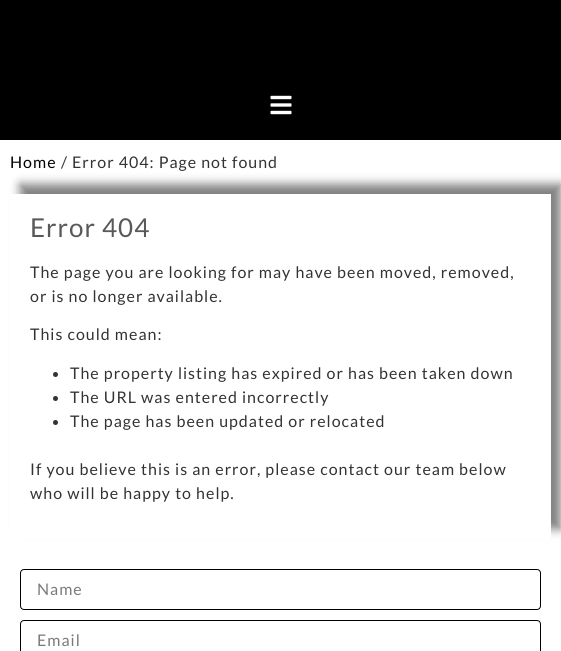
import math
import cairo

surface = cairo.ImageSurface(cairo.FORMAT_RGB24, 561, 651)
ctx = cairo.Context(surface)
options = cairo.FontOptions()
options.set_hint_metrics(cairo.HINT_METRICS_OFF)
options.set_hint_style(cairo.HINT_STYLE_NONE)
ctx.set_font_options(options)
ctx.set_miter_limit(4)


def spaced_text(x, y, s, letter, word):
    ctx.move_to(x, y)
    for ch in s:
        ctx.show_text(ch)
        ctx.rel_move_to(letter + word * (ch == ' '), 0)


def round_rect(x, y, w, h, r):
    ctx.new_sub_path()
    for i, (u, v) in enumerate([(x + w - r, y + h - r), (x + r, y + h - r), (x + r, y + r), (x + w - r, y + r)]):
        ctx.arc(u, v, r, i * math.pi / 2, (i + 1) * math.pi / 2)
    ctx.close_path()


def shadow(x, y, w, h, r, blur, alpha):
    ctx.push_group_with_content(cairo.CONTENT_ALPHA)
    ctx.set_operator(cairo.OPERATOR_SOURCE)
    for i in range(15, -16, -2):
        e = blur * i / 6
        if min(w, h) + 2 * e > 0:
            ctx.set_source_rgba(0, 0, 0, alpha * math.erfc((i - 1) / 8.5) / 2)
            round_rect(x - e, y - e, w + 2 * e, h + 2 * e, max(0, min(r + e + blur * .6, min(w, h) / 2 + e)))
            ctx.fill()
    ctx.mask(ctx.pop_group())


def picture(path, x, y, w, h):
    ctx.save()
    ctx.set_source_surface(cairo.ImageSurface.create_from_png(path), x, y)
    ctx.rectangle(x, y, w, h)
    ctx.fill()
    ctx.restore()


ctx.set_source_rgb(1, 1, 1)
ctx.paint()
ctx.set_source_rgb(0, 0, 0)
ctx.rectangle(0, 0, 561, 140)
ctx.fill()
picture("img1.png", 270, 95, 22, 20)
ctx.select_font_face("Lato")
ctx.set_font_size(16)
spaced_text(10, 168, "Home", 1, 0)
ctx.set_source_rgb(0.2, 0.2, 0.2)
spaced_text(61, 168, "/ Error 404: Page not found", 1, 0)
ctx.save()
ctx.set_fill_rule(cairo.FILL_RULE_EVEN_ODD)
ctx.new_path()
ctx.move_to(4, 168)
ctx.line_to(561, 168)
ctx.line_to(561, 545)
ctx.line_to(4, 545)
ctx.close_path()
ctx.move_to(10, 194)
ctx.line_to(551, 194)
ctx.line_to(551, 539)
ctx.line_to(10, 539)
ctx.close_path()
ctx.clip()
ctx.set_source_rgb(0, 0, 0)
shadow(20, 184, 541, 345, 0, 5, 0.5)
ctx.restore()
ctx.set_font_size(26)
ctx.set_source_rgb(0.349, 0.349, 0.349)
spaced_text(30, 237, "Error 404", 1, 0)
ctx.set_font_size(16)
ctx.set_source_rgb(0.2, 0.2, 0.2)
spaced_text(30, 278, "The page you are looking for may have been moved, removed,", 1, 0)
spaced_text(30, 302, "or is no longer available.", 1, 0)
spaced_text(30, 340, "This could mean:", 1, 0)
ctx.new_path()
ctx.arc(55.5, 374.5, 2.5, 0, 2 * math.pi)
ctx.fill()
spaced_text(70, 379, "The property listing has expired or has been taken down", 1, 0)
ctx.new_path()
ctx.arc(55.5, 398.5, 2.5, 0, 2 * math.pi)
ctx.fill()
spaced_text(70, 403, "The URL was entered incorrectly", 1, 0)
ctx.new_path()
ctx.arc(55.5, 422.5, 2.5, 0, 2 * math.pi)
ctx.fill()
spaced_text(70, 427, "The page has been updated or relocated", 1, 0)
spaced_text(30, 475, "If you believe this is an error, please contact our team below", 1, 0)
spaced_text(30, 499, "who will be happy to help.", 1, 0)
round_rect(20.5, 569.5, 520, 40, 3.5)
ctx.set_source_rgb(0, 0, 0)
ctx.set_line_width(1)
ctx.stroke()
ctx.set_source_rgb(0.475, 0.478, 0.486)
spaced_text(37, 595, "Name", 1, 0)
round_rect(20.5, 620.5, 520, 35, 3.5)
ctx.set_source_rgb(0, 0, 0)
ctx.stroke()
ctx.set_source_rgb(0.475, 0.478, 0.486)
spaced_text(37, 646, "Email", 1, 0)
surface.write_to_png("page.png")
